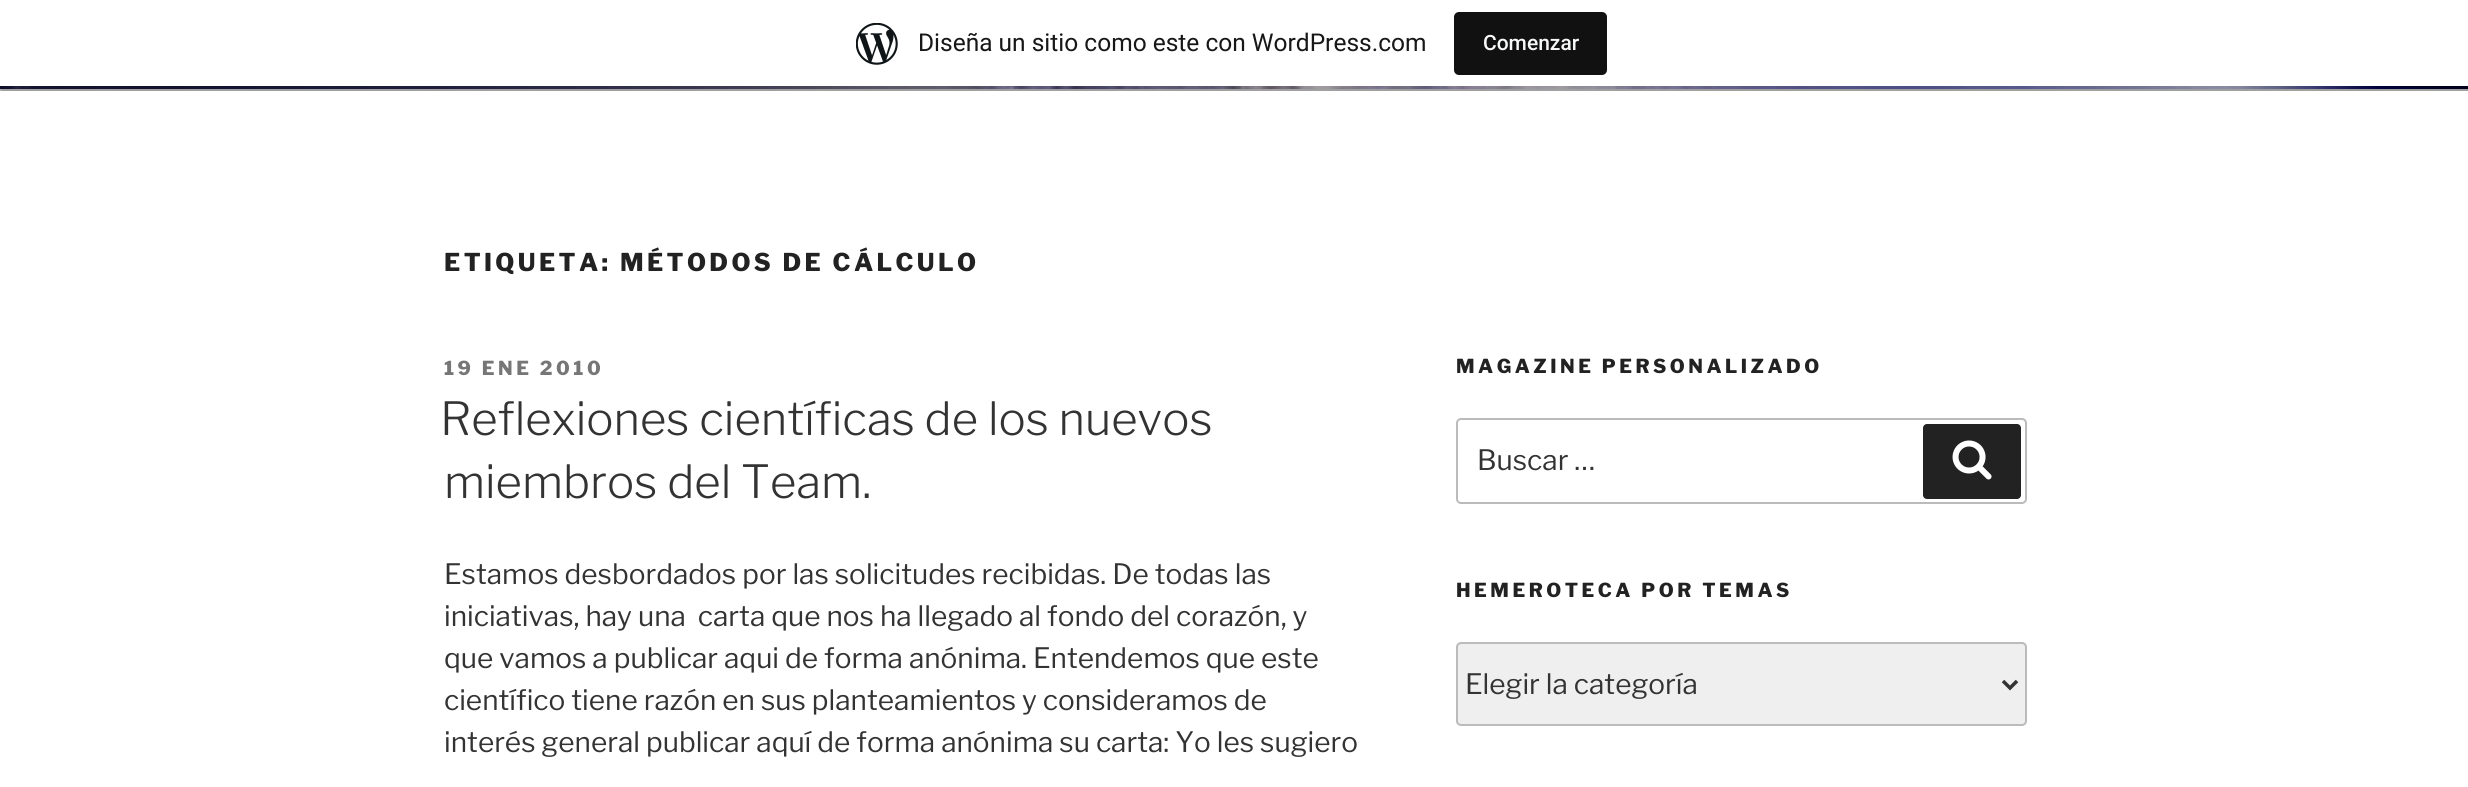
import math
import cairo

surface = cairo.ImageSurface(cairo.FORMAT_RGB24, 2468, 787)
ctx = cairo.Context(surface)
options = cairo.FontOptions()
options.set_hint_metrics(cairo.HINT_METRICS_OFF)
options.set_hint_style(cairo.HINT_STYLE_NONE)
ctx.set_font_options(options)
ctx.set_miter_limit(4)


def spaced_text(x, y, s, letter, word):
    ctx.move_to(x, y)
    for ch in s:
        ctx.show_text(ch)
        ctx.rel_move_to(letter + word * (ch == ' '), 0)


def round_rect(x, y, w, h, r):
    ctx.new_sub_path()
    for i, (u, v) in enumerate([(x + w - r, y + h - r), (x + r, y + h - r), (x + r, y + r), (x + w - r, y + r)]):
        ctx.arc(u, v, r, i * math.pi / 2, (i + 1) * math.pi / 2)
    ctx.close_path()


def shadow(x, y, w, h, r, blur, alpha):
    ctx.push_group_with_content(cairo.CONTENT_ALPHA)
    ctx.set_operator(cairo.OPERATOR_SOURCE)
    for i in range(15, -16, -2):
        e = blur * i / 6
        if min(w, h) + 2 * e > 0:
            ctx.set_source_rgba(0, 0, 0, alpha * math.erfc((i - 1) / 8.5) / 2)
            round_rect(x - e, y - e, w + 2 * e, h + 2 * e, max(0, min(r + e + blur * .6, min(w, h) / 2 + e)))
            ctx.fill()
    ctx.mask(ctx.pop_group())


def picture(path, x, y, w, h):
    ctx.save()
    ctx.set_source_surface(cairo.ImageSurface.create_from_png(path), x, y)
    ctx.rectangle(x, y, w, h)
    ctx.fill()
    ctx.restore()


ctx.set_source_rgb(1, 1, 1)
ctx.paint()
ctx.set_source_rgb(0.98, 0.98, 0.98)
ctx.rectangle(0, 89, 2468, 2)
ctx.fill()
picture("img2.png", 0, 86, 2468, 3)
gradient = cairo.LinearGradient(1235, -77, 1235, 91)
gradient.add_color_stop_rgba(0, 0, 0, 0, 0)
gradient.add_color_stop_rgba(0.75, 0, 0, 0, 0.3)
gradient.add_color_stop_rgba(1, 0, 0, 0, 0.3)
ctx.set_source(gradient)
ctx.rectangle(0, 86, 2468, 5)
ctx.fill()
ctx.set_source_rgb(0, 0, 0)
shadow(0, 2, 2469, 86, 0, 2, 0.05)
ctx.set_source_rgba(0, 0, 0, 0.08)
ctx.new_path()
ctx.move_to(2, 86)
ctx.line_to(2, 91)
ctx.line_to(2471, 91)
ctx.line_to(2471, 5)
ctx.line_to(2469, 5)
ctx.line_to(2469, 86)
ctx.close_path()
ctx.fill()
ctx.set_source_rgb(1, 1, 1)
ctx.rectangle(0, 0, 2468, 86)
ctx.fill()
picture("img1.png", 856, 23, 42, 42)
ctx.select_font_face("Roboto")
ctx.set_font_size(24.5)
ctx.set_source_rgb(0.09, 0.09, 0.09)
ctx.move_to(918, 51)
ctx.show_text("Diseña un sitio como este con WordPress.com")
ctx.set_source_rgb(0.067, 0.067, 0.067)
round_rect(1454, 12, 153, 63, 5)
ctx.fill()
ctx.select_font_face("Roboto Medium")
ctx.set_font_size(21)
ctx.set_source_rgb(0.965, 0.969, 0.969)
ctx.move_to(1483, 50)
ctx.show_text("Comenzar")
ctx.select_font_face("Libre Franklin Thin")
ctx.set_font_size(24.5)
ctx.set_source_rgb(0.133, 0.133, 0.133)
spaced_text(444, 271, "ETIQUETA: MÉTODOS DE CÁLCULO", 3.4, 0)
ctx.set_font_size(19.25)
ctx.set_source_rgb(0.463, 0.463, 0.463)
spaced_text(444, 375, "19 ENE 2010", 3.5, 0)
ctx.select_font_face("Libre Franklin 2 Thin")
ctx.set_font_size(45.5)
ctx.set_source_rgb(0.2, 0.2, 0.2)
ctx.move_to(440, 435)
ctx.show_text("Reflexiones científicas de los nuevos")
ctx.move_to(444, 498)
ctx.show_text("miembros del Team.")
ctx.select_font_face("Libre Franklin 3 Thin")
ctx.set_font_size(28)
ctx.move_to(444, 584)
ctx.show_text("Estamos desbordados por las solicitudes recibidas. De todas las")
ctx.move_to(444, 626)
ctx.show_text("iniciativas, hay una  carta que nos ha llegado al fondo del corazón, y")
ctx.move_to(444, 668)
ctx.show_text("que vamos a publicar aqui de forma anónima. Entendemos que este")
ctx.move_to(444, 710)
ctx.show_text("científico tiene razón en sus planteamientos y consideramos de")
ctx.move_to(444, 752)
ctx.show_text("interés general publicar aquí de forma anónima su carta: Yo les sugiero")
ctx.select_font_face("Libre Franklin Thin")
ctx.set_font_size(19.25)
ctx.set_source_rgb(0.133, 0.133, 0.133)
spaced_text(1456, 373, "MAGAZINE PERSONALIZADO", 3.5, 0)
round_rect(1457, 419, 569, 84, 4)
ctx.set_source_rgb(0.733, 0.733, 0.733)
ctx.stroke()
ctx.select_font_face("Libre Franklin 3 Thin")
ctx.set_font_size(28)
ctx.set_source_rgb(0.2, 0.2, 0.2)
ctx.move_to(1477, 470)
ctx.show_text("Buscar …")
ctx.set_source_rgb(0.133, 0.133, 0.133)
round_rect(1923, 424, 98, 75, 4)
ctx.fill()
picture("img3.png", 1952, 440, 40, 40)
ctx.select_font_face("Libre Franklin Thin")
ctx.set_font_size(19.25)
spaced_text(1456, 597, "HEMEROTECA POR TEMAS", 3.5, 0)
ctx.set_source_rgb(0.937, 0.937, 0.937)
round_rect(1457, 643, 569, 82, 4)
ctx.fill_preserve()
ctx.set_source_rgb(0.733, 0.733, 0.733)
ctx.stroke()
ctx.new_path()
ctx.move_to(2003, 681)
ctx.line_to(2010, 688)
ctx.line_to(2017, 681)
ctx.set_source_rgb(0.2, 0.2, 0.2)
ctx.set_line_width(3.5)
ctx.stroke()
ctx.select_font_face("Libre Franklin 3 Thin")
ctx.set_font_size(28)
ctx.move_to(1465, 694)
ctx.show_text("Elegir la categoría")
surface.write_to_png("page.png")
